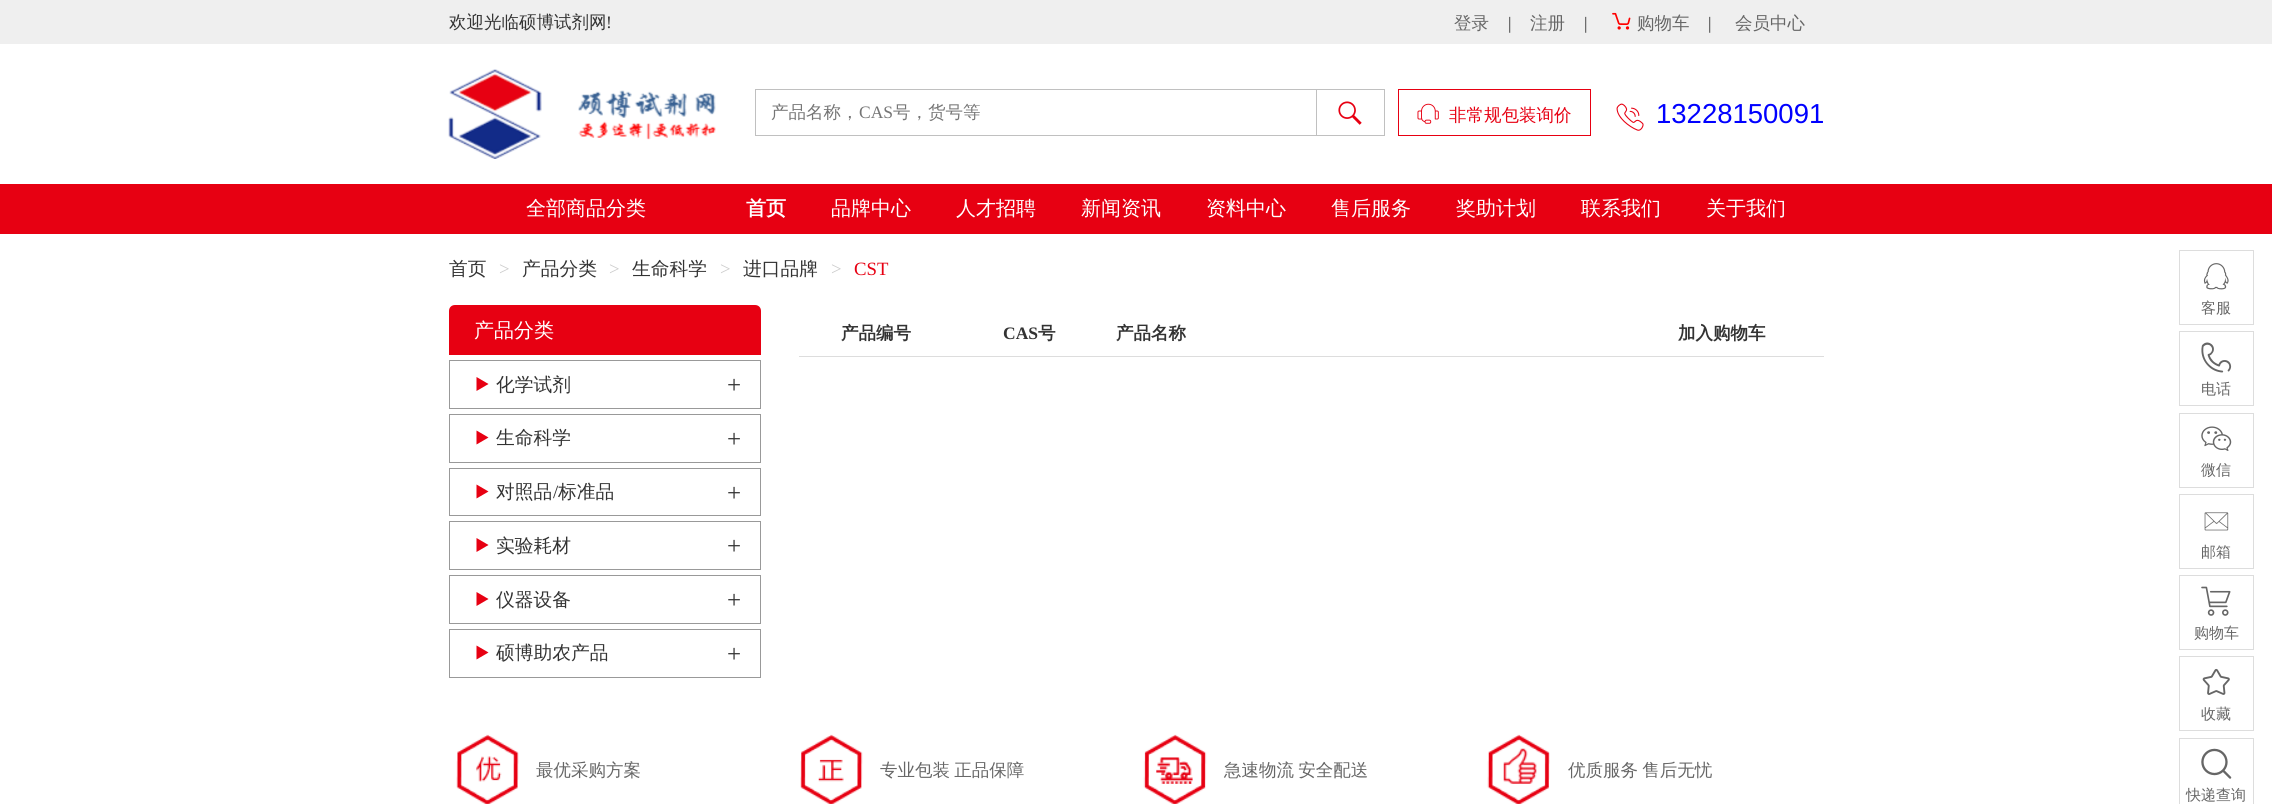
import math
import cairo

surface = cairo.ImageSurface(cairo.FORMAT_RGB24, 2272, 804)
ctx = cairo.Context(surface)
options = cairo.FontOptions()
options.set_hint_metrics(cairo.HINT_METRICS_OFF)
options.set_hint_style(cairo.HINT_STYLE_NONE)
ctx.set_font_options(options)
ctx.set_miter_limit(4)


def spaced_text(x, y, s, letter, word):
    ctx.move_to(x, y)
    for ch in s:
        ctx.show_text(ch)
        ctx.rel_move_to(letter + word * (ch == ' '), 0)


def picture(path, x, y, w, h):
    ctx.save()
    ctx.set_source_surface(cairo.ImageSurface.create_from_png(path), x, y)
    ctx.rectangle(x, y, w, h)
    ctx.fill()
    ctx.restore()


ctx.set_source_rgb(1, 1, 1)
ctx.paint()
ctx.set_source_rgb(0.937, 0.937, 0.937)
ctx.rectangle(0, 0, 2272, 44)
ctx.fill()
ctx.select_font_face("WenQuanYi Zen Hei Medium")
ctx.set_font_size(17.5)
ctx.set_source_rgb(0.2, 0.2, 0.2)
ctx.move_to(449, 28)
ctx.show_text("欢迎光临硕博试剂网")
ctx.select_font_face("Liberation Serif")
ctx.move_to(606, 28)
ctx.show_text("!")
ctx.select_font_face("WenQuanYi Zen Hei Medium")
ctx.set_source_rgb(0.4, 0.4, 0.4)
ctx.move_to(1454, 29)
ctx.show_text("登录")
ctx.select_font_face("Liberation Serif")
ctx.set_source_rgb(0.2, 0.2, 0.2)
ctx.move_to(1508, 29)
ctx.show_text("|")
ctx.select_font_face("WenQuanYi Zen Hei Medium")
ctx.set_source_rgb(0.4, 0.4, 0.4)
ctx.move_to(1530, 29)
ctx.show_text("注册")
ctx.select_font_face("Liberation Serif")
ctx.set_source_rgb(0.2, 0.2, 0.2)
ctx.move_to(1584, 29)
ctx.show_text("|")
picture("img1.png", 1612, 12, 19, 18)
ctx.select_font_face("WenQuanYi Zen Hei Medium")
ctx.set_source_rgb(0.4, 0.4, 0.4)
ctx.move_to(1637, 29)
ctx.show_text("购物车")
ctx.select_font_face("Liberation Serif")
ctx.set_source_rgb(0.2, 0.2, 0.2)
ctx.move_to(1708, 29)
ctx.show_text("|")
ctx.select_font_face("WenQuanYi Zen Hei Medium")
ctx.set_source_rgb(0.4, 0.4, 0.4)
ctx.move_to(1735, 29)
ctx.show_text("会员中心")
picture("img2.png", 448, 69, 94, 90)
picture("img3.png", 578, 90, 138, 50)
ctx.rectangle(755.5, 89.5, 562, 46)
ctx.set_source_rgb(0.753, 0.753, 0.753)
ctx.set_line_width(1)
ctx.stroke()
ctx.set_source_rgb(0.459, 0.459, 0.459)
ctx.move_to(771, 118)
ctx.show_text("产品名称，")
ctx.select_font_face("Liberation Serif")
ctx.move_to(859, 118)
ctx.show_text("CAS")
ctx.select_font_face("WenQuanYi Zen Hei Medium")
ctx.move_to(893, 118)
ctx.show_text("号，货号等")
ctx.set_source_rgb(1, 1, 1)
ctx.rectangle(1317, 90, 1, 45)
ctx.fill()
ctx.rectangle(1316.5, 89.5, 68, 46)
ctx.set_source_rgb(0.753, 0.753, 0.753)
ctx.stroke()
picture("img4.png", 1338, 101, 24, 24)
ctx.rectangle(1398.5, 89.5, 192, 46)
ctx.set_source_rgb(0.906, 0, 0.071)
ctx.stroke()
picture("img5.png", 1417, 103, 22, 21)
ctx.move_to(1449, 121)
ctx.show_text("非常规包装询价")
picture("img6.png", 1616, 103, 28, 28)
ctx.select_font_face("Liberation Sans")
ctx.set_font_size(27.5)
ctx.set_source_rgb(0, 0, 1)
ctx.move_to(1656, 123)
ctx.show_text("13228150091")
ctx.set_source_rgb(0.906, 0, 0.071)
ctx.rectangle(0, 184, 2272, 50)
ctx.fill()
ctx.select_font_face("WenQuanYi Zen Hei Medium")
ctx.set_font_size(20)
ctx.set_source_rgb(1, 1, 1)
ctx.move_to(526, 215)
ctx.show_text("全部商品分类")
ctx.select_font_face("WenQuanYi Zen Hei", cairo.FONT_SLANT_NORMAL, cairo.FONT_WEIGHT_BOLD)
ctx.move_to(746, 215)
ctx.show_text("首页")
ctx.select_font_face("WenQuanYi Zen Hei Medium")
ctx.move_to(831, 215)
ctx.show_text("品牌中心")
ctx.move_to(956, 215)
ctx.show_text("人才招聘")
ctx.move_to(1081, 215)
ctx.show_text("新闻资讯")
ctx.move_to(1206, 215)
ctx.show_text("资料中心")
ctx.move_to(1331, 215)
ctx.show_text("售后服务")
ctx.move_to(1456, 215)
ctx.show_text("奖助计划")
ctx.move_to(1581, 215)
ctx.show_text("联系我们")
ctx.move_to(1706, 215)
ctx.show_text("关于我们")
ctx.set_font_size(18.75)
ctx.set_source_rgb(0.2, 0.2, 0.2)
ctx.move_to(449, 275)
ctx.show_text("首页")
ctx.select_font_face("Liberation Serif")
ctx.set_source_rgb(0.8, 0.8, 0.8)
ctx.move_to(499, 275)
ctx.show_text(">")
ctx.select_font_face("WenQuanYi Zen Hei Medium")
ctx.set_source_rgb(0.2, 0.2, 0.2)
ctx.move_to(522, 275)
ctx.show_text("产品分类")
ctx.select_font_face("Liberation Serif")
ctx.set_source_rgb(0.8, 0.8, 0.8)
ctx.move_to(609, 275)
ctx.show_text(">")
ctx.select_font_face("WenQuanYi Zen Hei Medium")
ctx.set_source_rgb(0.2, 0.2, 0.2)
ctx.move_to(632, 275)
ctx.show_text("生命科学")
ctx.select_font_face("Liberation Serif")
ctx.set_source_rgb(0.8, 0.8, 0.8)
ctx.move_to(720, 275)
ctx.show_text(">")
ctx.select_font_face("WenQuanYi Zen Hei Medium")
ctx.set_source_rgb(0.2, 0.2, 0.2)
ctx.move_to(743, 275)
ctx.show_text("进口品牌")
ctx.select_font_face("Liberation Serif")
ctx.set_source_rgb(0.8, 0.8, 0.8)
ctx.move_to(831, 275)
ctx.show_text(">")
ctx.set_source_rgb(0.906, 0, 0.071)
ctx.move_to(854, 275)
ctx.show_text("CST")
ctx.new_path()
ctx.move_to(455, 305)
ctx.line_to(755, 305)
ctx.curve_to(758.5, 305, 761, 307.5, 761, 311)
ctx.line_to(761, 355)
ctx.line_to(449, 355)
ctx.line_to(449, 311)
ctx.curve_to(449, 307.5, 451.5, 305, 455, 305)
ctx.close_path()
ctx.fill()
ctx.select_font_face("WenQuanYi Zen Hei Medium")
ctx.set_font_size(20)
ctx.set_source_rgb(1, 1, 1)
ctx.move_to(474, 337)
ctx.show_text("产品分类")
ctx.rectangle(449.5, 360.5, 311, 48)
ctx.set_source_rgb(0.6, 0.6, 0.6)
ctx.stroke()
ctx.set_source_rgb(0.906, 0, 0.071)
ctx.new_path()
ctx.move_to(476.5, 391)
ctx.line_to(488.5, 384)
ctx.line_to(476.5, 377)
ctx.close_path()
ctx.fill()
ctx.set_font_size(18.75)
ctx.set_source_rgb(0.2, 0.2, 0.2)
ctx.move_to(496, 391)
ctx.show_text("化学试剂")
ctx.select_font_face("Liberation Serif")
ctx.set_font_size(25)
ctx.move_to(727, 393)
ctx.show_text("+")
ctx.rectangle(449.5, 414.5, 311, 48)
ctx.set_source_rgb(0.6, 0.6, 0.6)
ctx.stroke()
ctx.set_source_rgb(0.906, 0, 0.071)
ctx.new_path()
ctx.move_to(476.5, 444.5)
ctx.line_to(488.5, 437.5)
ctx.line_to(476.5, 430.5)
ctx.close_path()
ctx.fill()
ctx.select_font_face("WenQuanYi Zen Hei Medium")
ctx.set_font_size(18.75)
ctx.set_source_rgb(0.2, 0.2, 0.2)
ctx.move_to(496, 444)
ctx.show_text("生命科学")
ctx.select_font_face("Liberation Serif")
ctx.set_font_size(25)
ctx.move_to(727, 447)
ctx.show_text("+")
ctx.rectangle(449.5, 468.5, 311, 47)
ctx.set_source_rgb(0.6, 0.6, 0.6)
ctx.stroke()
ctx.set_source_rgb(0.906, 0, 0.071)
ctx.new_path()
ctx.move_to(476.5, 498.5)
ctx.line_to(488.5, 491.5)
ctx.line_to(476.5, 484.5)
ctx.close_path()
ctx.fill()
ctx.select_font_face("WenQuanYi Zen Hei Medium")
ctx.set_font_size(18.75)
ctx.set_source_rgb(0.2, 0.2, 0.2)
ctx.move_to(496, 498)
ctx.show_text("对照品")
ctx.select_font_face("Liberation Serif")
ctx.move_to(553, 498)
ctx.show_text("/")
ctx.select_font_face("WenQuanYi Zen Hei Medium")
ctx.move_to(558, 498)
ctx.show_text("标准品")
ctx.select_font_face("Liberation Serif")
ctx.set_font_size(25)
ctx.move_to(727, 501)
ctx.show_text("+")
ctx.rectangle(449.5, 521.5, 311, 48)
ctx.set_source_rgb(0.6, 0.6, 0.6)
ctx.stroke()
ctx.set_source_rgb(0.906, 0, 0.071)
ctx.new_path()
ctx.move_to(476.5, 552)
ctx.line_to(488.5, 545)
ctx.line_to(476.5, 538)
ctx.close_path()
ctx.fill()
ctx.select_font_face("WenQuanYi Zen Hei Medium")
ctx.set_font_size(18.75)
ctx.set_source_rgb(0.2, 0.2, 0.2)
ctx.move_to(496, 552)
ctx.show_text("实验耗材")
ctx.select_font_face("Liberation Serif")
ctx.set_font_size(25)
ctx.move_to(727, 554)
ctx.show_text("+")
ctx.rectangle(449.5, 575.5, 311, 48)
ctx.set_source_rgb(0.6, 0.6, 0.6)
ctx.stroke()
ctx.set_source_rgb(0.906, 0, 0.071)
ctx.new_path()
ctx.move_to(476.5, 606)
ctx.line_to(488.5, 599)
ctx.line_to(476.5, 592)
ctx.close_path()
ctx.fill()
ctx.select_font_face("WenQuanYi Zen Hei Medium")
ctx.set_font_size(18.75)
ctx.set_source_rgb(0.2, 0.2, 0.2)
ctx.move_to(496, 606)
ctx.show_text("仪器设备")
ctx.select_font_face("Liberation Serif")
ctx.set_font_size(25)
ctx.move_to(727, 608)
ctx.show_text("+")
ctx.rectangle(449.5, 629.5, 311, 48)
ctx.set_source_rgb(0.6, 0.6, 0.6)
ctx.stroke()
ctx.set_source_rgb(0.906, 0, 0.071)
ctx.new_path()
ctx.move_to(476.5, 659.5)
ctx.line_to(488.5, 652.5)
ctx.line_to(476.5, 645.5)
ctx.close_path()
ctx.fill()
ctx.select_font_face("WenQuanYi Zen Hei Medium")
ctx.set_font_size(18.75)
ctx.set_source_rgb(0.2, 0.2, 0.2)
ctx.move_to(496, 659)
ctx.show_text("硕博助农产品")
ctx.select_font_face("Liberation Serif")
ctx.set_font_size(25)
ctx.move_to(727, 662)
ctx.show_text("+")
ctx.select_font_face("WenQuanYi Zen Hei", cairo.FONT_SLANT_NORMAL, cairo.FONT_WEIGHT_BOLD)
ctx.set_font_size(17.5)
ctx.move_to(841, 339)
ctx.show_text("产品编号")
ctx.select_font_face("Liberation Serif", cairo.FONT_SLANT_NORMAL, cairo.FONT_WEIGHT_BOLD)
ctx.move_to(1003, 339)
ctx.show_text("CAS")
ctx.select_font_face("WenQuanYi Zen Hei", cairo.FONT_SLANT_NORMAL, cairo.FONT_WEIGHT_BOLD)
ctx.move_to(1038, 339)
ctx.show_text("号")
ctx.move_to(1116, 339)
ctx.show_text("产品名称")
ctx.set_source_rgb(0.867, 0.867, 0.867)
ctx.rectangle(799, 356, 1025, 1)
ctx.fill()
ctx.set_source_rgb(0.2, 0.2, 0.2)
ctx.move_to(1678, 339)
ctx.show_text("加入购物车")
ctx.rectangle(2179.5, 250.5, 74, 74)
ctx.set_source_rgb(0.867, 0.867, 0.867)
ctx.stroke()
picture("img7.png", 2203, 263, 26, 27)
ctx.select_font_face("WenQuanYi Zen Hei Medium")
ctx.set_font_size(15)
ctx.set_source_rgb(0.4, 0.4, 0.4)
ctx.move_to(2201, 313)
ctx.show_text("客服")
ctx.rectangle(2179.5, 331.5, 74, 74)
ctx.set_source_rgb(0.867, 0.867, 0.867)
ctx.stroke()
picture("img8.png", 2201, 342, 31, 31)
ctx.set_source_rgb(0.4, 0.4, 0.4)
ctx.move_to(2201, 394)
ctx.show_text("电话")
ctx.rectangle(2179.5, 413.5, 74, 74)
ctx.set_source_rgb(0.867, 0.867, 0.867)
ctx.stroke()
picture("img9.png", 2201, 426, 31, 25)
ctx.set_source_rgb(0.4, 0.4, 0.4)
ctx.move_to(2201, 475)
ctx.show_text("微信")
ctx.rectangle(2179.5, 494.5, 74, 74)
ctx.set_source_rgb(0.867, 0.867, 0.867)
ctx.stroke()
picture("img10.png", 2204, 512, 25, 19)
ctx.set_source_rgb(0.4, 0.4, 0.4)
ctx.move_to(2201, 557)
ctx.show_text("邮箱")
ctx.rectangle(2179.5, 575.5, 74, 74)
ctx.set_source_rgb(0.867, 0.867, 0.867)
ctx.stroke()
picture("img11.png", 2201, 586, 30, 30)
ctx.set_source_rgb(0.4, 0.4, 0.4)
ctx.move_to(2194, 638)
ctx.show_text("购物车")
ctx.rectangle(2179.5, 656.5, 74, 74)
ctx.set_source_rgb(0.867, 0.867, 0.867)
ctx.stroke()
picture("img12.png", 2202, 668, 28, 27)
ctx.set_source_rgb(0.4, 0.4, 0.4)
ctx.move_to(2201, 719)
ctx.show_text("收藏")
ctx.rectangle(2179.5, 738.5, 74, 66)
ctx.set_source_rgb(0.867, 0.867, 0.867)
ctx.stroke()
picture("img13.png", 2201, 748, 31, 31)
ctx.set_source_rgb(0.4, 0.4, 0.4)
ctx.move_to(2186, 800)
ctx.show_text("快递查询")
picture("img14.png", 456, 734, 63, 70)
ctx.set_font_size(17.5)
ctx.move_to(536, 776)
ctx.show_text("最优采购方案")
picture("img15.png", 800, 734, 63, 70)
spaced_text(880, 776, "专业包装 正品保障", 0, -1)
picture("img16.png", 1143, 734, 64, 70)
spaced_text(1224, 776, "急速物流 安全配送", 0, -1)
picture("img17.png", 1487, 734, 63, 70)
spaced_text(1568, 776, "优质服务 售后无忧", 0, -1)
surface.write_to_png("page.png")
